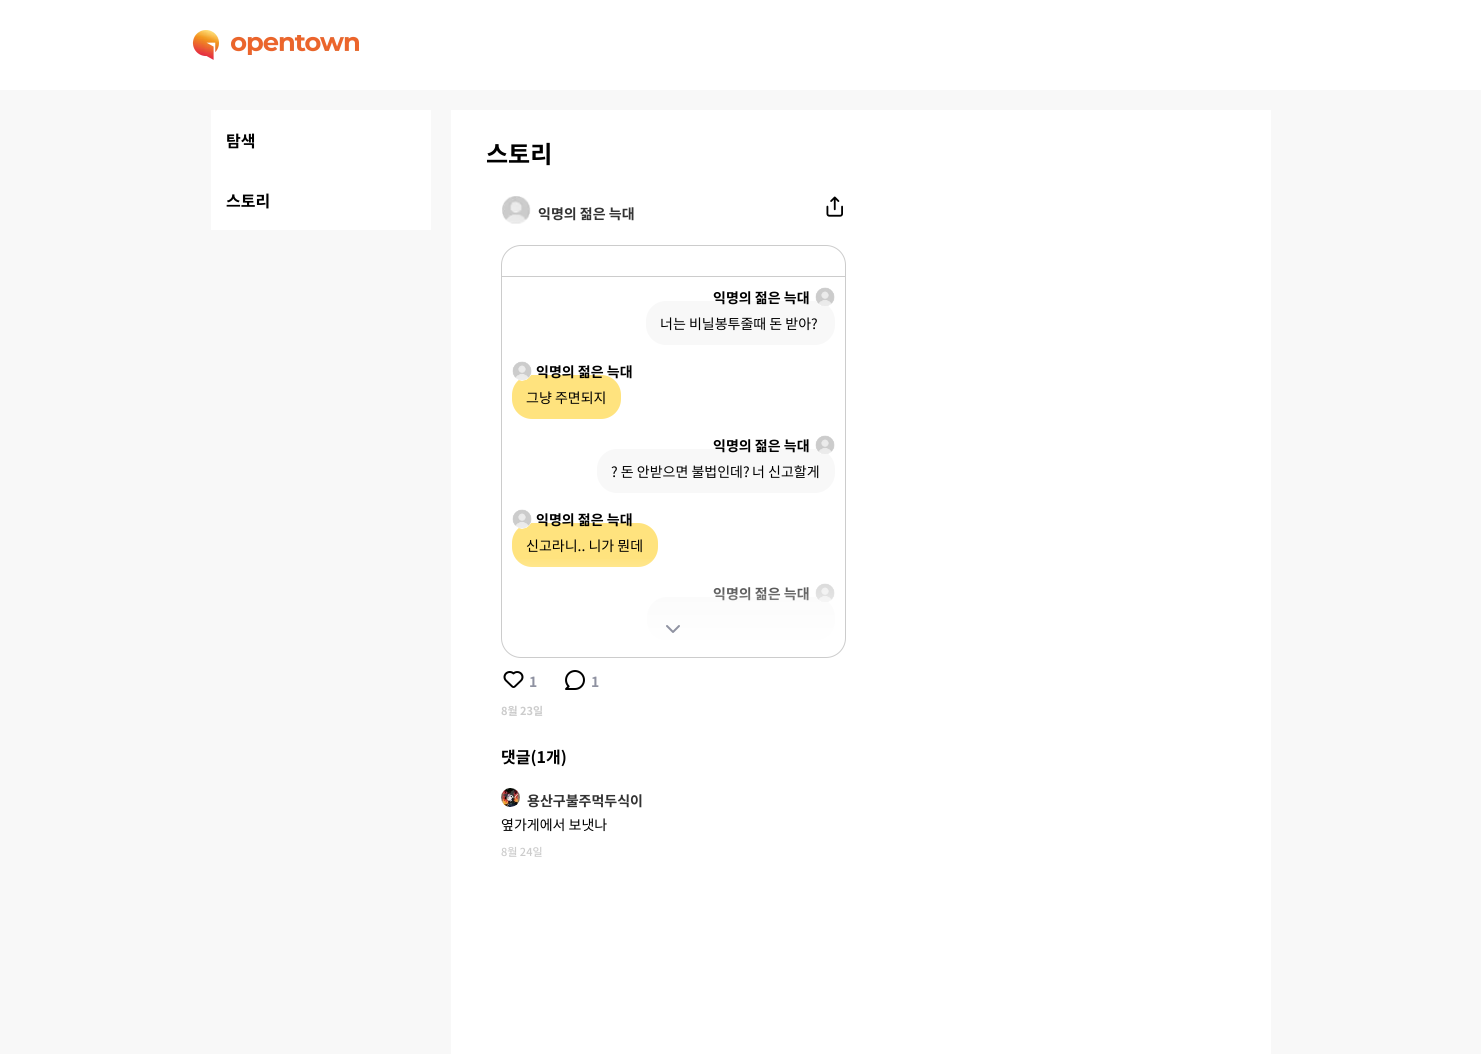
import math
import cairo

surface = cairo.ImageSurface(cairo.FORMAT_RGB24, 1481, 1054)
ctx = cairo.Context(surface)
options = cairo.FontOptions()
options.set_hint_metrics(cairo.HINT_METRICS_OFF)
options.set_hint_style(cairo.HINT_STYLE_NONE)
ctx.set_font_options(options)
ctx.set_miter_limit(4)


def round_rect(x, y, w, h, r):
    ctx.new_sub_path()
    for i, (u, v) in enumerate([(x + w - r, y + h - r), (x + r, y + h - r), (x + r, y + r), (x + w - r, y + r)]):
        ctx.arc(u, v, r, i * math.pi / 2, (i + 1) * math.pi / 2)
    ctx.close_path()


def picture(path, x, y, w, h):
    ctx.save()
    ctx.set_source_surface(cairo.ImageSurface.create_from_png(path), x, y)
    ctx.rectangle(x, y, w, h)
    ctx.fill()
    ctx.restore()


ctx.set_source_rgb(0.969, 0.969, 0.969)
ctx.paint()
ctx.set_source_rgb(1, 1, 1)
ctx.rectangle(0, 0, 1481, 90)
ctx.fill()
picture("img1.png", 192, 30, 167, 30)
ctx.rectangle(211, 110, 220, 120)
ctx.fill()
ctx.select_font_face("Noto Sans KR", cairo.FONT_SLANT_NORMAL, cairo.FONT_WEIGHT_BOLD)
ctx.set_font_size(16)
ctx.set_source_rgb(0, 0, 0)
ctx.move_to(226, 147)
ctx.show_text("탐색")
ctx.move_to(226, 207)
ctx.show_text("스토리")
ctx.set_source_rgb(1, 1, 1)
ctx.rectangle(451, 110, 820, 944)
ctx.fill()
ctx.set_font_size(24)
ctx.set_source_rgb(0, 0, 0)
ctx.move_to(486, 163)
ctx.show_text("스토리")
picture("img2.png", 502, 196, 29, 28)
ctx.set_font_size(14)
ctx.set_source_rgb(0.2, 0.2, 0.2)
ctx.move_to(538, 219)
ctx.show_text("익명의 젊은 늑대")
picture("img3.png", 826, 196, 17, 21)
round_rect(501.5, 245.5, 344, 412, 19.5)
ctx.set_source_rgb(0.8, 0.8, 0.8)
ctx.set_line_width(1)
ctx.stroke()
ctx.rectangle(502, 276, 343, 1)
ctx.fill()
ctx.set_source_rgb(0.969, 0.969, 0.969)
round_rect(646, 301, 189, 44, 20)
ctx.fill()
ctx.set_source_rgb(0, 0, 0)
ctx.move_to(713, 303)
ctx.show_text("익명의 젊은 늑대")
picture("img4.png", 815, 287, 20, 19)
ctx.select_font_face("Noto Sans KR")
ctx.move_to(660, 329)
ctx.show_text("너는 비닐봉투줄때 돈 받아?")
ctx.set_source_rgb(1, 0.89, 0.494)
round_rect(512, 375, 109, 44, 20)
ctx.fill()
picture("img5.png", 512, 361, 20, 20)
ctx.select_font_face("Noto Sans KR", cairo.FONT_SLANT_NORMAL, cairo.FONT_WEIGHT_BOLD)
ctx.set_source_rgb(0, 0, 0)
ctx.move_to(536, 377)
ctx.show_text("익명의 젊은 늑대")
ctx.select_font_face("Noto Sans KR")
ctx.move_to(526, 403)
ctx.show_text("그냥 주면되지")
ctx.set_source_rgb(0.969, 0.969, 0.969)
round_rect(597, 449, 238, 44, 20)
ctx.fill()
ctx.select_font_face("Noto Sans KR", cairo.FONT_SLANT_NORMAL, cairo.FONT_WEIGHT_BOLD)
ctx.set_source_rgb(0, 0, 0)
ctx.move_to(713, 451)
ctx.show_text("익명의 젊은 늑대")
picture("img4.png", 815, 435, 20, 19)
ctx.select_font_face("Noto Sans KR")
ctx.move_to(611, 477)
ctx.show_text("? 돈 안받으면 불법인데?")
ctx.move_to(752, 477)
ctx.show_text("너 신고할게")
ctx.set_source_rgb(1, 0.89, 0.494)
round_rect(512, 523, 146, 44, 20)
ctx.fill()
picture("img5.png", 512, 509, 20, 20)
ctx.select_font_face("Noto Sans KR", cairo.FONT_SLANT_NORMAL, cairo.FONT_WEIGHT_BOLD)
ctx.set_source_rgb(0, 0, 0)
ctx.move_to(536, 525)
ctx.show_text("익명의 젊은 늑대")
ctx.select_font_face("Noto Sans KR")
ctx.move_to(526, 551)
ctx.show_text("신고라니.. 니가 뭔데")
ctx.set_source_rgb(0.969, 0.969, 0.969)
round_rect(647, 597, 188, 44, 20)
ctx.fill()
ctx.select_font_face("Noto Sans KR", cairo.FONT_SLANT_NORMAL, cairo.FONT_WEIGHT_BOLD)
ctx.set_source_rgb(0, 0, 0)
ctx.move_to(713, 599)
ctx.show_text("익명의 젊은 늑대")
picture("img4.png", 815, 583, 20, 19)
gradient = cairo.LinearGradient(674, 647, 674, 557)
gradient.add_color_stop_rgba(0, 1, 1, 1, 1)
gradient.add_color_stop_rgba(1, 1, 1, 1, 0)
ctx.set_source(gradient)
ctx.rectangle(517, 559, 318, 82)
ctx.fill()
picture("img6.png", 666, 625, 14, 8)
picture("img7.png", 503, 671, 21, 17)
ctx.set_source_rgb(0.561, 0.573, 0.631)
ctx.move_to(529, 687)
ctx.show_text("1")
picture("img8.png", 565, 670, 20, 20)
ctx.move_to(591, 687)
ctx.show_text("1")
ctx.set_font_size(11)
ctx.set_source_rgb(0.8, 0.8, 0.8)
ctx.move_to(501, 715)
ctx.show_text("8월 23일")
ctx.set_font_size(16)
ctx.set_source_rgb(0, 0, 0)
ctx.move_to(501, 763)
ctx.show_text("댓글(1개)")
picture("img9.png", 501, 788, 19, 19)
ctx.set_font_size(14)
ctx.set_source_rgb(0.2, 0.2, 0.2)
ctx.move_to(527, 806)
ctx.show_text("용산구불주먹두식이")
ctx.select_font_face("Noto Sans KR")
ctx.set_source_rgb(0, 0, 0)
ctx.move_to(501, 830)
ctx.show_text("옆가게에서 보냇나")
ctx.select_font_face("Noto Sans KR Medium")
ctx.set_font_size(11)
ctx.set_source_rgb(0.8, 0.8, 0.8)
ctx.move_to(501, 856)
ctx.show_text("8월 24일")
surface.write_to_png("page.png")
